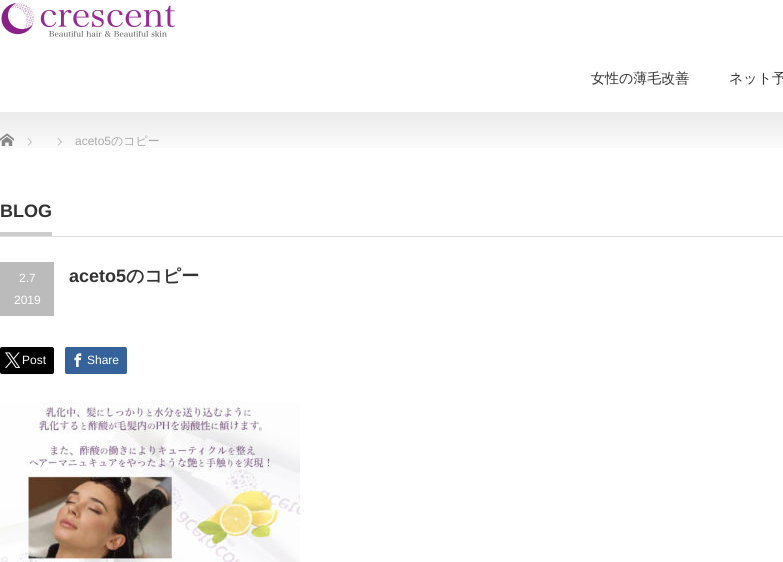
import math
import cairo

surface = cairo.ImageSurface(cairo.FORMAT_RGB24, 783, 562)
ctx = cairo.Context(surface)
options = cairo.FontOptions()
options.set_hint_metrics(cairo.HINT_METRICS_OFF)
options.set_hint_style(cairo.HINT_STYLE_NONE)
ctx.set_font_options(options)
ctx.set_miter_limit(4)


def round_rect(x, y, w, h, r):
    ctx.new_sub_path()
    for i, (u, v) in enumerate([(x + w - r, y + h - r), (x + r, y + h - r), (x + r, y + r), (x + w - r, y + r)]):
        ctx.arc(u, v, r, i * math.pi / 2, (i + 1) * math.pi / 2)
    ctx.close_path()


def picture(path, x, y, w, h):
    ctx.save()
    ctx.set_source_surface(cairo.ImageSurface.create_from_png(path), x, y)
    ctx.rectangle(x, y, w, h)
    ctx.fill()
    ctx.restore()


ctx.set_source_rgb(1, 1, 1)
ctx.paint()
picture("img1.png", 1, 2, 174, 35)
ctx.select_font_face("WenQuanYi Zen Hei Medium")
ctx.set_font_size(14)
ctx.set_source_rgb(0.2, 0.2, 0.2)
ctx.move_to(591, 83)
ctx.show_text("女性の薄毛改善")
ctx.move_to(729, 83)
ctx.show_text("ネット予")
picture("img2.png", 0, 112, 783, 36)
picture("img3.png", 0, 133, 14, 13)
picture("img4.png", 27, 138, 5, 8)
picture("img4.png", 57, 138, 5, 8)
ctx.select_font_face("Liberation Sans")
ctx.set_font_size(12)
ctx.set_source_rgb(0.667, 0.667, 0.667)
ctx.move_to(75, 145)
ctx.show_text("aceto5")
ctx.select_font_face("WenQuanYi Zen Hei Medium")
ctx.move_to(111, 145)
ctx.show_text("のコピー")
ctx.set_source_rgb(0.867, 0.867, 0.867)
ctx.rectangle(0, 236, 783, 1)
ctx.fill()
ctx.set_source_rgb(0.8, 0.8, 0.8)
ctx.rectangle(0, 232, 52, 4)
ctx.fill()
ctx.select_font_face("Liberation Sans", cairo.FONT_SLANT_NORMAL, cairo.FONT_WEIGHT_BOLD)
ctx.set_font_size(18)
ctx.set_source_rgb(0.2, 0.2, 0.2)
ctx.move_to(0, 217)
ctx.show_text("BLOG")
ctx.set_source_rgb(0.733, 0.733, 0.733)
ctx.rectangle(0, 262, 54, 54)
ctx.fill()
ctx.select_font_face("Liberation Sans")
ctx.set_font_size(12)
ctx.set_source_rgb(1, 1, 1)
ctx.move_to(19, 282)
ctx.show_text("2.7")
ctx.move_to(14, 304)
ctx.show_text("2019")
ctx.select_font_face("Liberation Sans", cairo.FONT_SLANT_NORMAL, cairo.FONT_WEIGHT_BOLD)
ctx.set_font_size(18)
ctx.set_source_rgb(0.2, 0.2, 0.2)
ctx.move_to(69, 282)
ctx.show_text("aceto5")
ctx.select_font_face("WenQuanYi Zen Hei", cairo.FONT_SLANT_NORMAL, cairo.FONT_WEIGHT_BOLD)
ctx.move_to(126, 282)
ctx.show_text("のコピー")
ctx.set_source_rgb(0.969, 0.969, 0.969)
ctx.new_path()
ctx.move_to(0, 372)
ctx.curve_to(0, 377, 6, 375, 10, 375)
ctx.line_to(44, 375)
ctx.curve_to(48, 375, 54, 377, 54, 372)
ctx.line_to(53, 374)
ctx.line_to(1, 374)
ctx.close_path()
ctx.fill()
ctx.set_source_rgb(0, 0, 0)
round_rect(0, 347, 54, 27, 2)
ctx.fill()
picture("img5.png", 5, 352, 16, 16)
ctx.select_font_face("Liberation Sans")
ctx.set_font_size(12)
ctx.set_source_rgb(1, 1, 1)
ctx.move_to(22, 364)
ctx.show_text("Post")
ctx.set_source_rgb(0.969, 0.969, 0.969)
ctx.new_path()
ctx.move_to(65, 372)
ctx.curve_to(65, 378, 73, 375, 77, 375)
ctx.line_to(115, 375)
ctx.curve_to(119, 375, 127, 378, 127, 372)
ctx.line_to(126, 374)
ctx.line_to(77, 374)
ctx.curve_to(73, 374, 65, 376, 65, 372)
ctx.close_path()
ctx.fill()
ctx.set_source_rgb(0.208, 0.384, 0.604)
round_rect(65, 347, 62, 27, 2)
ctx.fill()
picture("img6.png", 74, 353, 8, 14)
ctx.set_source_rgb(1, 1, 1)
ctx.move_to(87, 364)
ctx.show_text("Share")
picture("img7.png", 0, 402, 300, 160)
surface.write_to_png("page.png")
